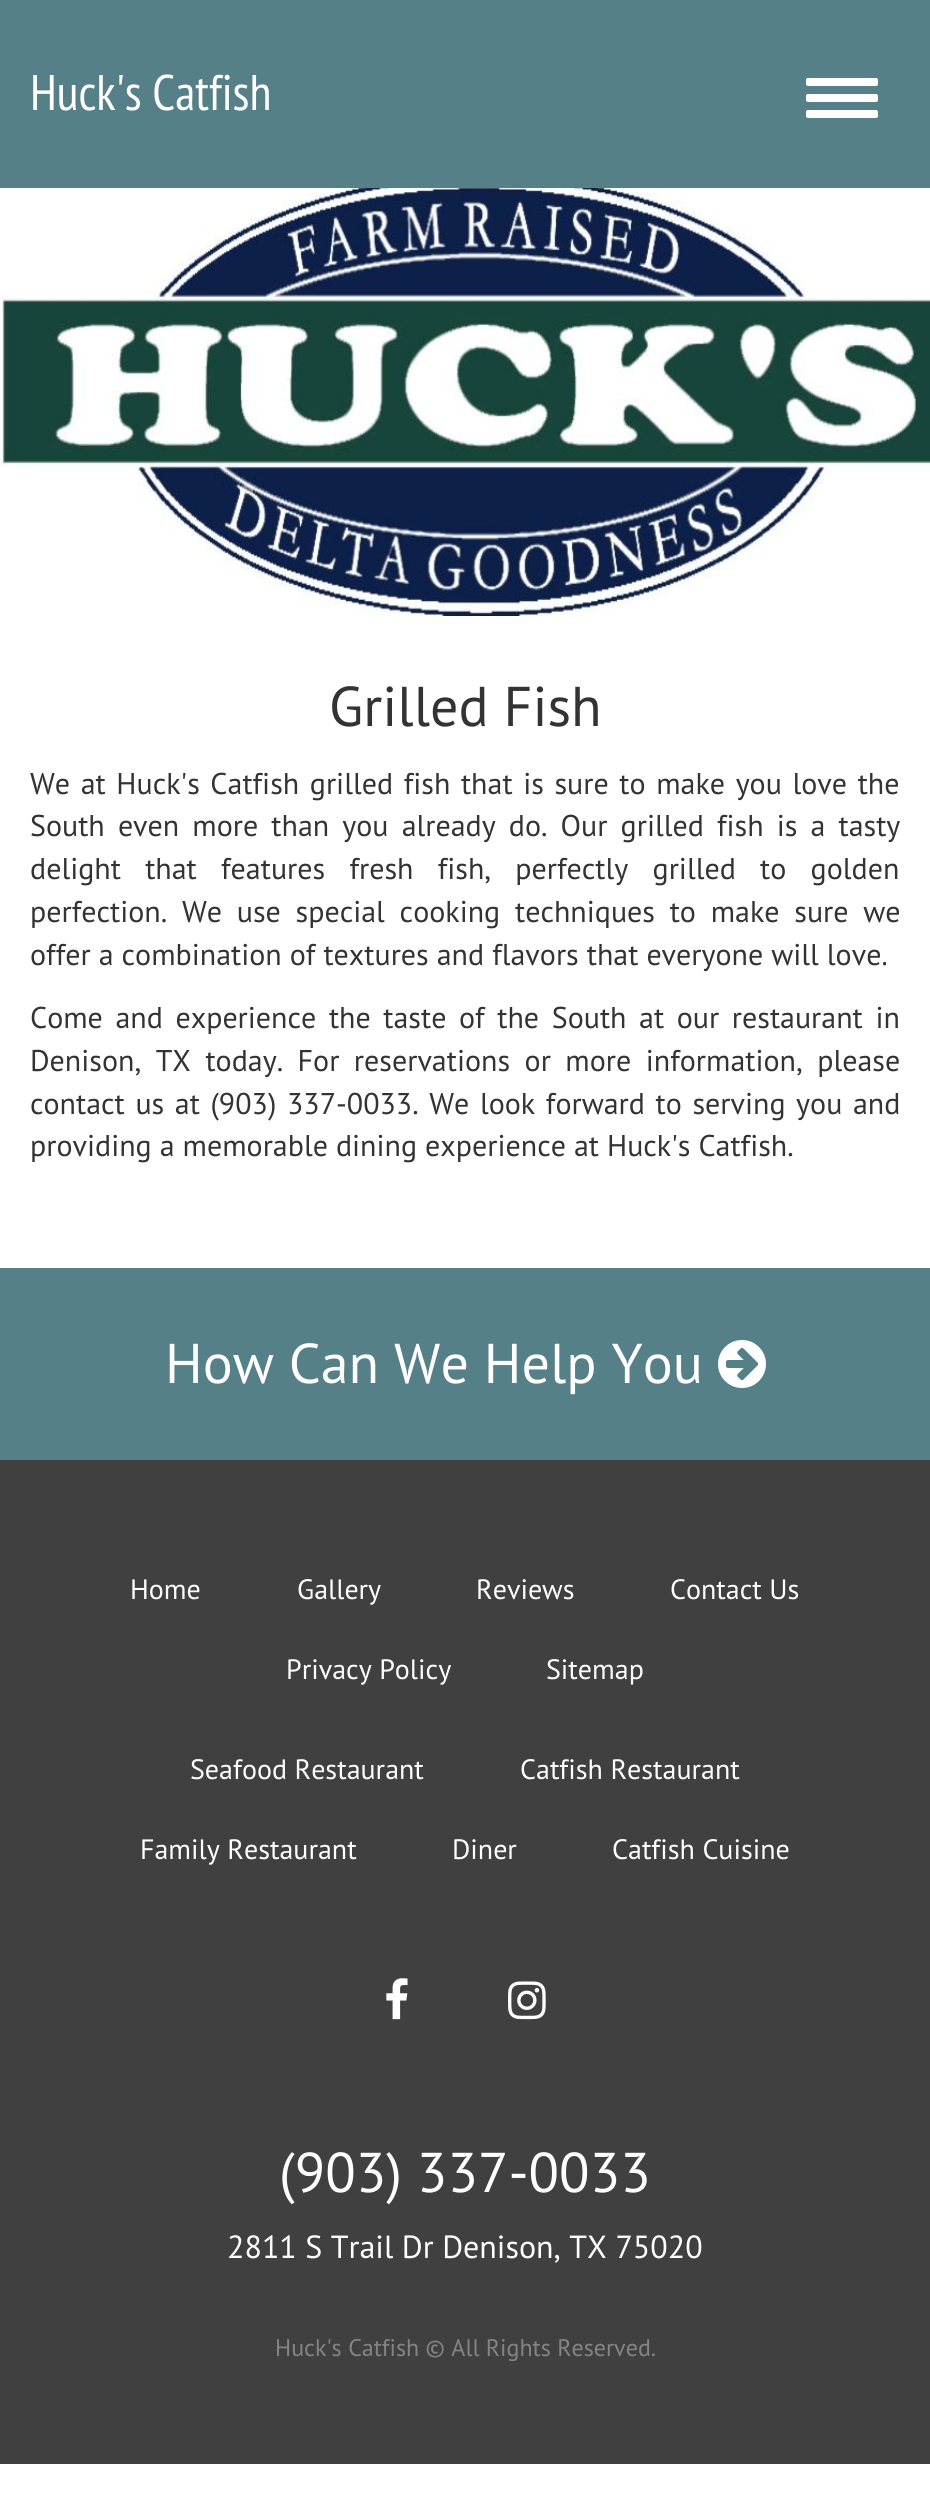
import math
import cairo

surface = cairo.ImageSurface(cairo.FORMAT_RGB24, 930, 2494)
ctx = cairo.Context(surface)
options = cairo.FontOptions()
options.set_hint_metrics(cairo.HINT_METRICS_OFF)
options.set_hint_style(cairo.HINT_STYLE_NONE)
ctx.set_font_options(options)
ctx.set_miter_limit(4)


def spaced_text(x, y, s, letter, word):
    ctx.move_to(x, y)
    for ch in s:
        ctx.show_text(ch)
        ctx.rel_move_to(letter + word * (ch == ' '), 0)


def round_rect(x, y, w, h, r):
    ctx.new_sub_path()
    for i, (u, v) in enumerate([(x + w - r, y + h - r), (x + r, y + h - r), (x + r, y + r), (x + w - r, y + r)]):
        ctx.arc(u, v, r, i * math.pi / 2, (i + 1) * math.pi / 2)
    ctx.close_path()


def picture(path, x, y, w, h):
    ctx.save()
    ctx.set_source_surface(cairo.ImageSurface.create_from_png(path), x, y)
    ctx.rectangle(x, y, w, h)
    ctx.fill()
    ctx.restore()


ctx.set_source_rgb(1, 1, 1)
ctx.paint()
ctx.set_source_rgb(0.337, 0.502, 0.529)
ctx.rectangle(0, 0, 930, 188)
ctx.fill()
ctx.select_font_face("PT Sans Narrow")
ctx.set_font_size(50)
ctx.set_source_rgb(1, 1, 1)
ctx.move_to(30, 110)
ctx.show_text("Huck's Catfish")
round_rect(806, 78, 72, 8, 2)
ctx.fill()
round_rect(806, 94, 72, 8, 2)
ctx.fill()
round_rect(806, 110, 72, 8, 2)
ctx.fill()
picture("img1.png", 0, 188, 930, 428)
ctx.select_font_face("PT Sans")
ctx.set_font_size(56)
ctx.set_source_rgb(0.2, 0.2, 0.2)
ctx.move_to(329, 726)
ctx.show_text("Grilled Fish")
ctx.set_font_size(30)
spaced_text(30, 794, "We at Huck's Catfish grilled fish that is sure to make you love the", 0, 2.6)
spaced_text(30, 836, "South even more than you already do. Our grilled fish is a tasty", 0, 5.1)
spaced_text(30, 879, "delight that features fresh fish, perfectly grilled to golden", 0, 16.25)
spaced_text(30, 922, "perfection. We use special cooking techniques to make sure we", 0, 6.75)
ctx.move_to(30, 965)
ctx.show_text("offer a combination of textures and flavors that everyone will love.")
spaced_text(30, 1028, "Come and experience the taste of the South at our restaurant in", 0, 4.6)
spaced_text(30, 1071, "Denison, TX today. For reservations or more information, please", 0, 6.5)
spaced_text(30, 1114, "contact us at (903) 337-0033. We look forward to serving you and", 0, 2.6)
ctx.move_to(30, 1156)
ctx.show_text("providing a memorable dining experience at Huck's Catfish.")
ctx.set_source_rgb(0.337, 0.502, 0.529)
ctx.rectangle(0, 1268, 930, 192)
ctx.fill()
ctx.set_font_size(56)
ctx.set_source_rgb(1, 1, 1)
ctx.move_to(165, 1383)
ctx.show_text("How Can We Help You")
picture("img2.png", 718, 1340, 48, 48)
ctx.set_source_rgb(0.251, 0.251, 0.251)
ctx.rectangle(0, 1460, 930, 1004)
ctx.fill()
ctx.set_font_size(28)
ctx.set_source_rgb(1, 1, 1)
ctx.move_to(130, 1599)
ctx.show_text("Home")
ctx.move_to(297, 1599)
ctx.show_text("Gallery")
ctx.move_to(476, 1599)
ctx.show_text("Reviews")
ctx.move_to(670, 1599)
ctx.show_text("Contact Us")
ctx.move_to(286, 1679)
ctx.show_text("Privacy Policy")
ctx.move_to(546, 1679)
ctx.show_text("Sitemap")
ctx.move_to(190, 1779)
ctx.show_text("Seafood Restaurant")
ctx.move_to(520, 1779)
ctx.show_text("Catfish Restaurant")
ctx.move_to(140, 1859)
ctx.show_text("Family Restaurant")
ctx.move_to(452, 1859)
ctx.show_text("Diner")
ctx.move_to(612, 1859)
ctx.show_text("Catfish Cuisine")
picture("img3.png", 386, 1978, 22, 42)
picture("img4.png", 508, 1981, 38, 39)
ctx.set_font_size(56)
ctx.move_to(279, 2192)
ctx.show_text("(903) 337-0033")
ctx.set_font_size(32)
ctx.move_to(227, 2258)
ctx.show_text("2811 S Trail Dr Denison, TX 75020")
ctx.set_font_size(24)
ctx.set_source_rgb(0.518, 0.518, 0.518)
ctx.move_to(275, 2356)
ctx.show_text("Huck's Catfish © All Rights Reserved.")
surface.write_to_png("page.png")
